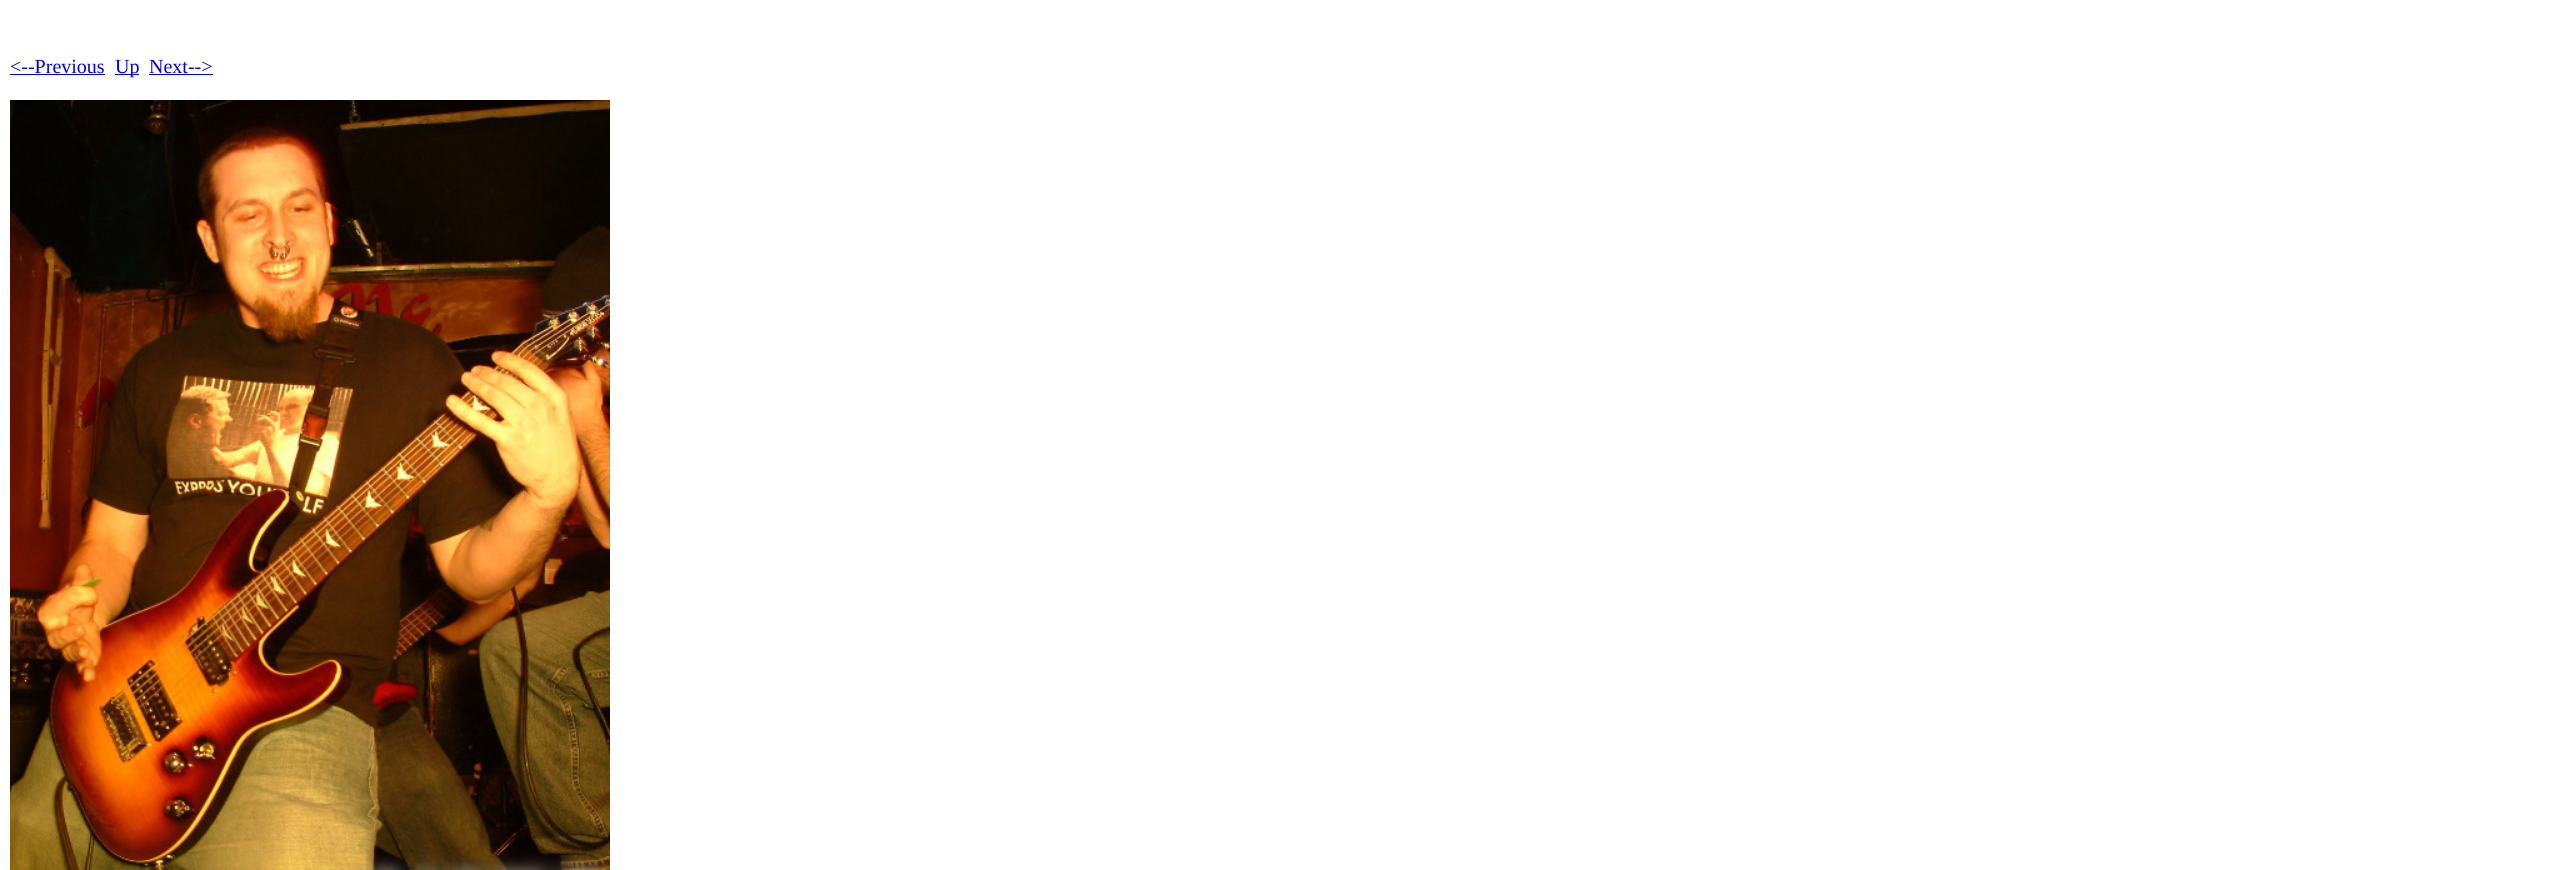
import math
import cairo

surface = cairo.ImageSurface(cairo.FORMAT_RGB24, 2568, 870)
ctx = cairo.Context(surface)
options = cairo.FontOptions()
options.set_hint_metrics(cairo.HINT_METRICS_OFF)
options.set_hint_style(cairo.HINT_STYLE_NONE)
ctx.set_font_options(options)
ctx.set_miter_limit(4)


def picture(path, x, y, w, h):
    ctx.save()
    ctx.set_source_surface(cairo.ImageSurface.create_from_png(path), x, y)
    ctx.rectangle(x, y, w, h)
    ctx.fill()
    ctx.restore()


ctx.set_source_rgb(1, 1, 1)
ctx.paint()
ctx.select_font_face("Liberation Serif")
ctx.set_font_size(20)
ctx.set_source_rgb(0, 0, 0.933)
ctx.move_to(10, 73)
ctx.show_text("<--Previous")
ctx.rectangle(10, 74, 95, 1)
ctx.fill()
ctx.rectangle(115, 74, 24, 1)
ctx.fill()
ctx.move_to(115, 73)
ctx.show_text("Up")
ctx.move_to(149, 73)
ctx.show_text("Next-->")
ctx.rectangle(149, 74, 64, 1)
ctx.fill()
picture("img1.png", 10, 100, 600, 770)
surface.write_to_png("page.png")
